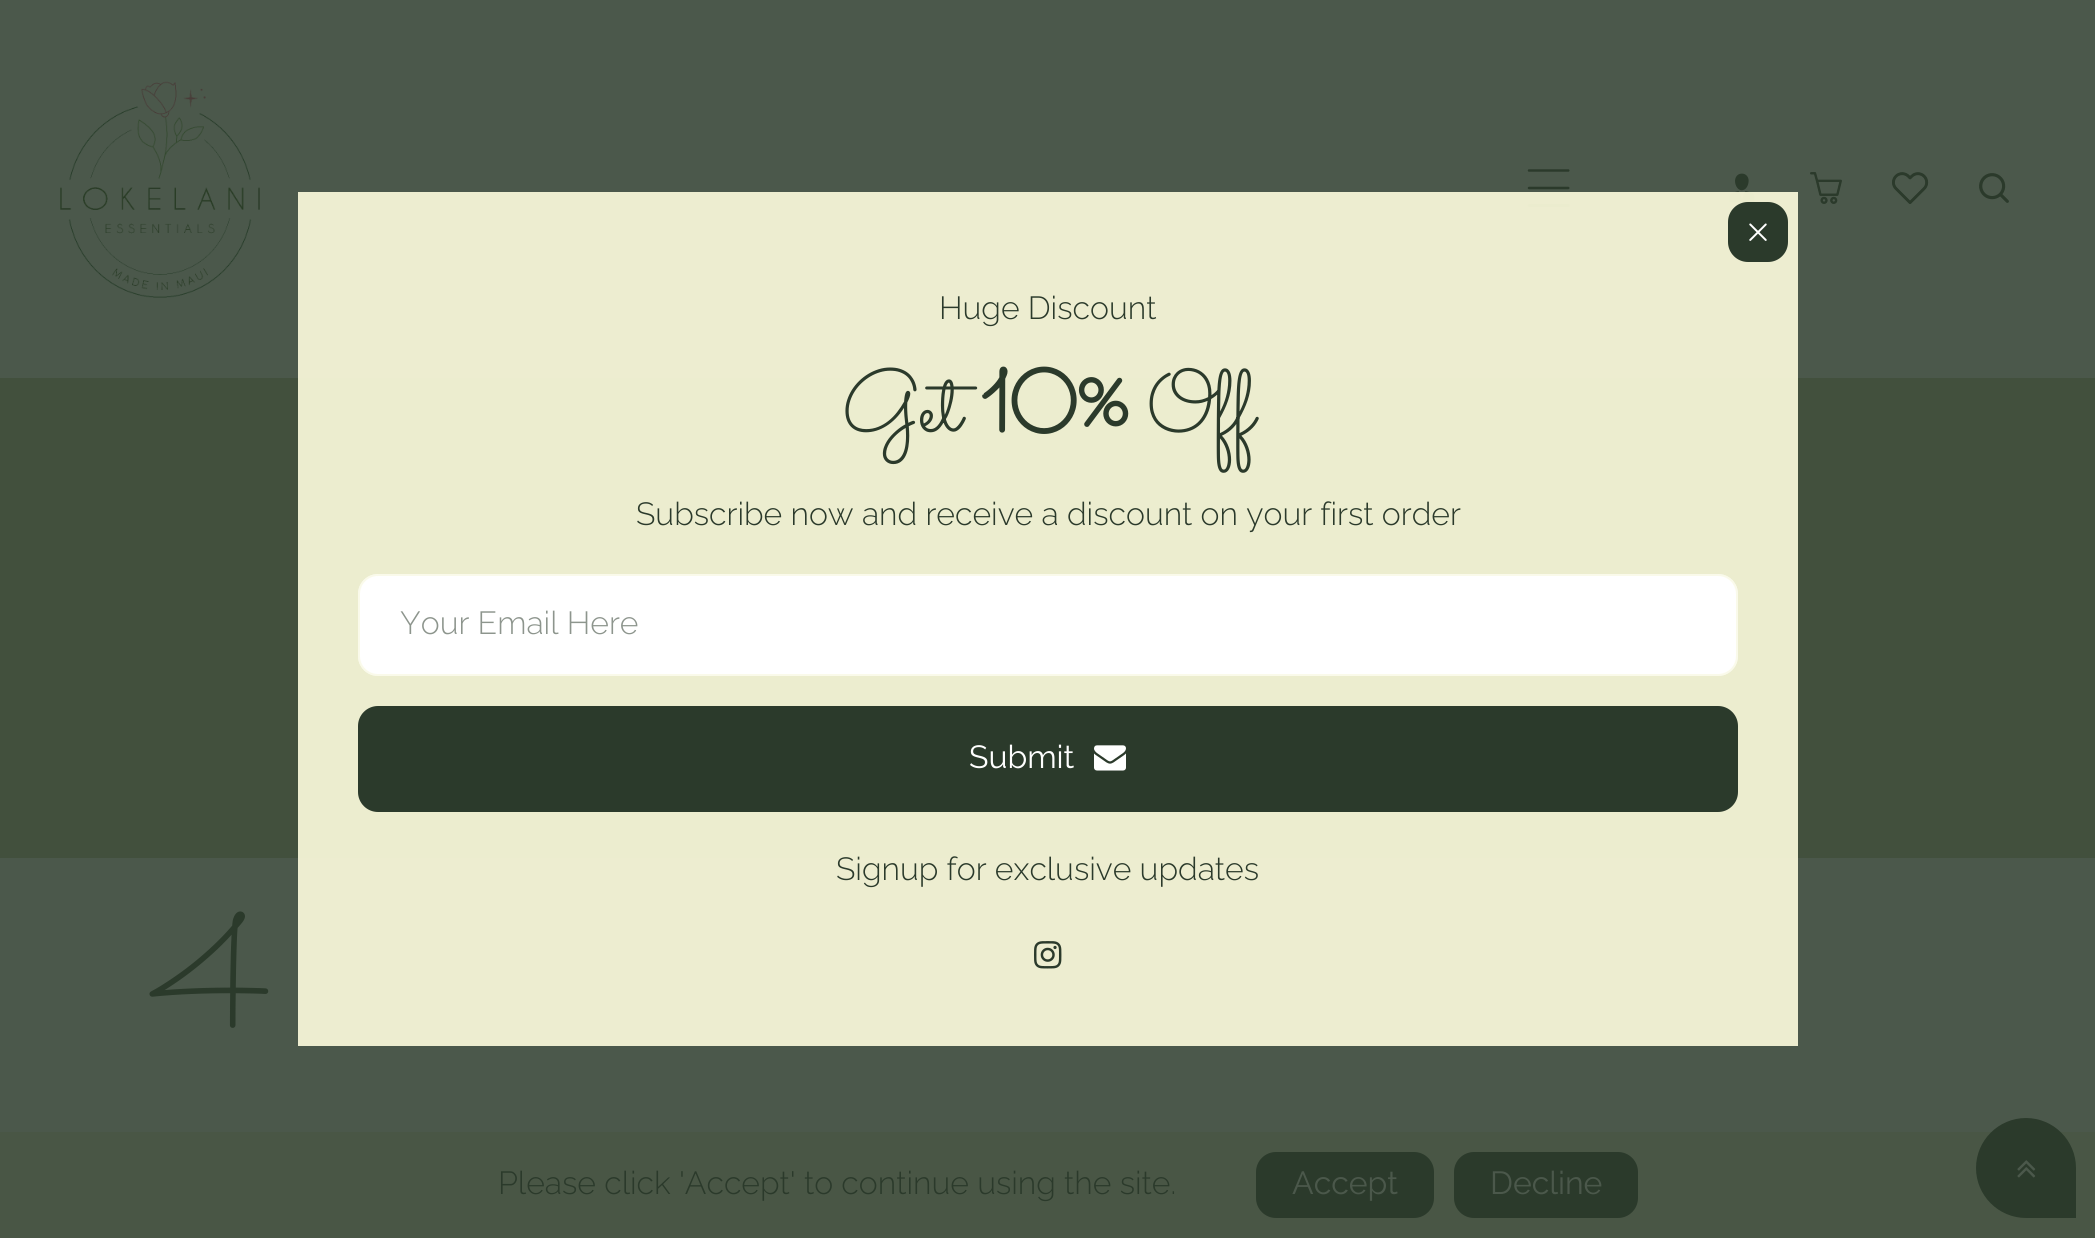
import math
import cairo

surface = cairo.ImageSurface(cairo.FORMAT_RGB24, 2095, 1238)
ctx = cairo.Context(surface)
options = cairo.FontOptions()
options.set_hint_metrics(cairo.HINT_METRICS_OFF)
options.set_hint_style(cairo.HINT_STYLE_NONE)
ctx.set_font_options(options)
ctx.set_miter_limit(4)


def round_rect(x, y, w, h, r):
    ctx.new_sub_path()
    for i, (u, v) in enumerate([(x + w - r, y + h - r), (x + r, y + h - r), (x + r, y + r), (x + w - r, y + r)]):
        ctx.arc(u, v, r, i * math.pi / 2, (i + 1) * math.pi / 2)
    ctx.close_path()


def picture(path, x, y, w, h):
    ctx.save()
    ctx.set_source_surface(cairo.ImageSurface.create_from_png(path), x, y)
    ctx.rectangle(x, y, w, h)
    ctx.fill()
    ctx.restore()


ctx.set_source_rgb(0.294, 0.345, 0.294)
ctx.paint()
picture("img5.png", 1527, 169, 43, 38)
picture("img6.png", 1729, 173, 26, 30)
ctx.set_source_rgb(0.259, 0.314, 0.239)
ctx.rectangle(0, 378, 2095, 480)
ctx.fill()
ctx.set_source_rgba(0.961, 0.961, 0.839, 0.95)
ctx.rectangle(298, 192, 1500, 854)
ctx.fill()
ctx.set_source_rgb(0.169, 0.227, 0.169)
round_rect(1728, 202, 60, 60, 20)
ctx.fill()
picture("img1.png", 1749, 223, 18, 18)
ctx.select_font_face("Raleway Light")
ctx.set_font_size(32)
ctx.move_to(939, 319)
ctx.show_text("Huge Discount")
ctx.select_font_face("Sacramento")
ctx.set_font_size(88)
ctx.move_to(842, 431)
ctx.show_text("Get")
ctx.select_font_face("Sacramento", cairo.FONT_SLANT_NORMAL, cairo.FONT_WEIGHT_BOLD)
ctx.move_to(980, 431)
ctx.show_text("10%")
ctx.select_font_face("Sacramento")
ctx.move_to(1147, 431)
ctx.show_text("Off")
ctx.select_font_face("Raleway Light")
ctx.set_font_size(32)
ctx.move_to(636, 525)
ctx.show_text("Subscribe now and receive a discount on your first order")
ctx.set_source_rgb(1, 1, 1)
round_rect(358, 574, 1380, 102, 20)
ctx.fill()
round_rect(359, 575, 1378, 100, 19)
ctx.set_source_rgba(0.961, 0.961, 0.839, 0.5)
ctx.stroke()
ctx.set_source_rgb(0.553, 0.584, 0.553)
ctx.move_to(400, 634)
ctx.show_text("Your Email Here")
ctx.set_source_rgb(0.169, 0.227, 0.169)
round_rect(358, 706, 1380, 106, 20)
ctx.fill()
ctx.select_font_face("Raleway")
ctx.set_source_rgb(1, 1, 1)
ctx.move_to(969, 768)
ctx.show_text("Submit")
picture("img2.png", 1094, 745, 32, 26)
ctx.select_font_face("Raleway Light")
ctx.set_source_rgb(0.169, 0.227, 0.169)
ctx.move_to(836, 880)
ctx.show_text("Signup for exclusive updates")
picture("img3.png", 1034, 941, 28, 28)
picture("img4.png", 60, 81, 200, 217)
picture("img7.png", 1810, 172, 32, 32)
picture("img8.png", 1892, 172, 37, 32)
picture("img9.png", 1979, 173, 30, 30)
ctx.select_font_face("Sacramento")
ctx.set_font_size(152)
ctx.move_to(148, 1023)
ctx.show_text("4")
ctx.set_source_rgb(0.286, 0.337, 0.271)
ctx.rectangle(0, 1132, 2095, 106)
ctx.fill()
ctx.select_font_face("Raleway Light")
ctx.set_font_size(32)
ctx.set_source_rgb(0.169, 0.227, 0.169)
ctx.move_to(498, 1194)
ctx.show_text("Please click 'Accept' to continue using the site.")
round_rect(1256, 1152, 178, 66, 20)
ctx.fill()
ctx.select_font_face("Raleway")
ctx.set_source_rgb(0.294, 0.345, 0.294)
ctx.move_to(1292, 1194)
ctx.show_text("Accept")
ctx.set_source_rgb(0.169, 0.227, 0.169)
round_rect(1454, 1152, 184, 66, 20)
ctx.fill()
ctx.set_source_rgb(0.294, 0.345, 0.294)
ctx.move_to(1490, 1194)
ctx.show_text("Decline")
ctx.set_source_rgb(0.169, 0.227, 0.169)
ctx.new_path()
ctx.move_to(2026, 1118)
ctx.curve_to(2053.5, 1118, 2076, 1140.5, 2076, 1168)
ctx.line_to(2076, 1218)
ctx.line_to(2026, 1218)
ctx.curve_to(1998.5, 1218, 1976, 1195.5, 1976, 1168)
ctx.curve_to(1976, 1140.5, 1998.5, 1118, 2026, 1118)
ctx.close_path()
ctx.fill()
picture("img10.png", 2017, 1160, 19, 18)
surface.write_to_png("page.png")
